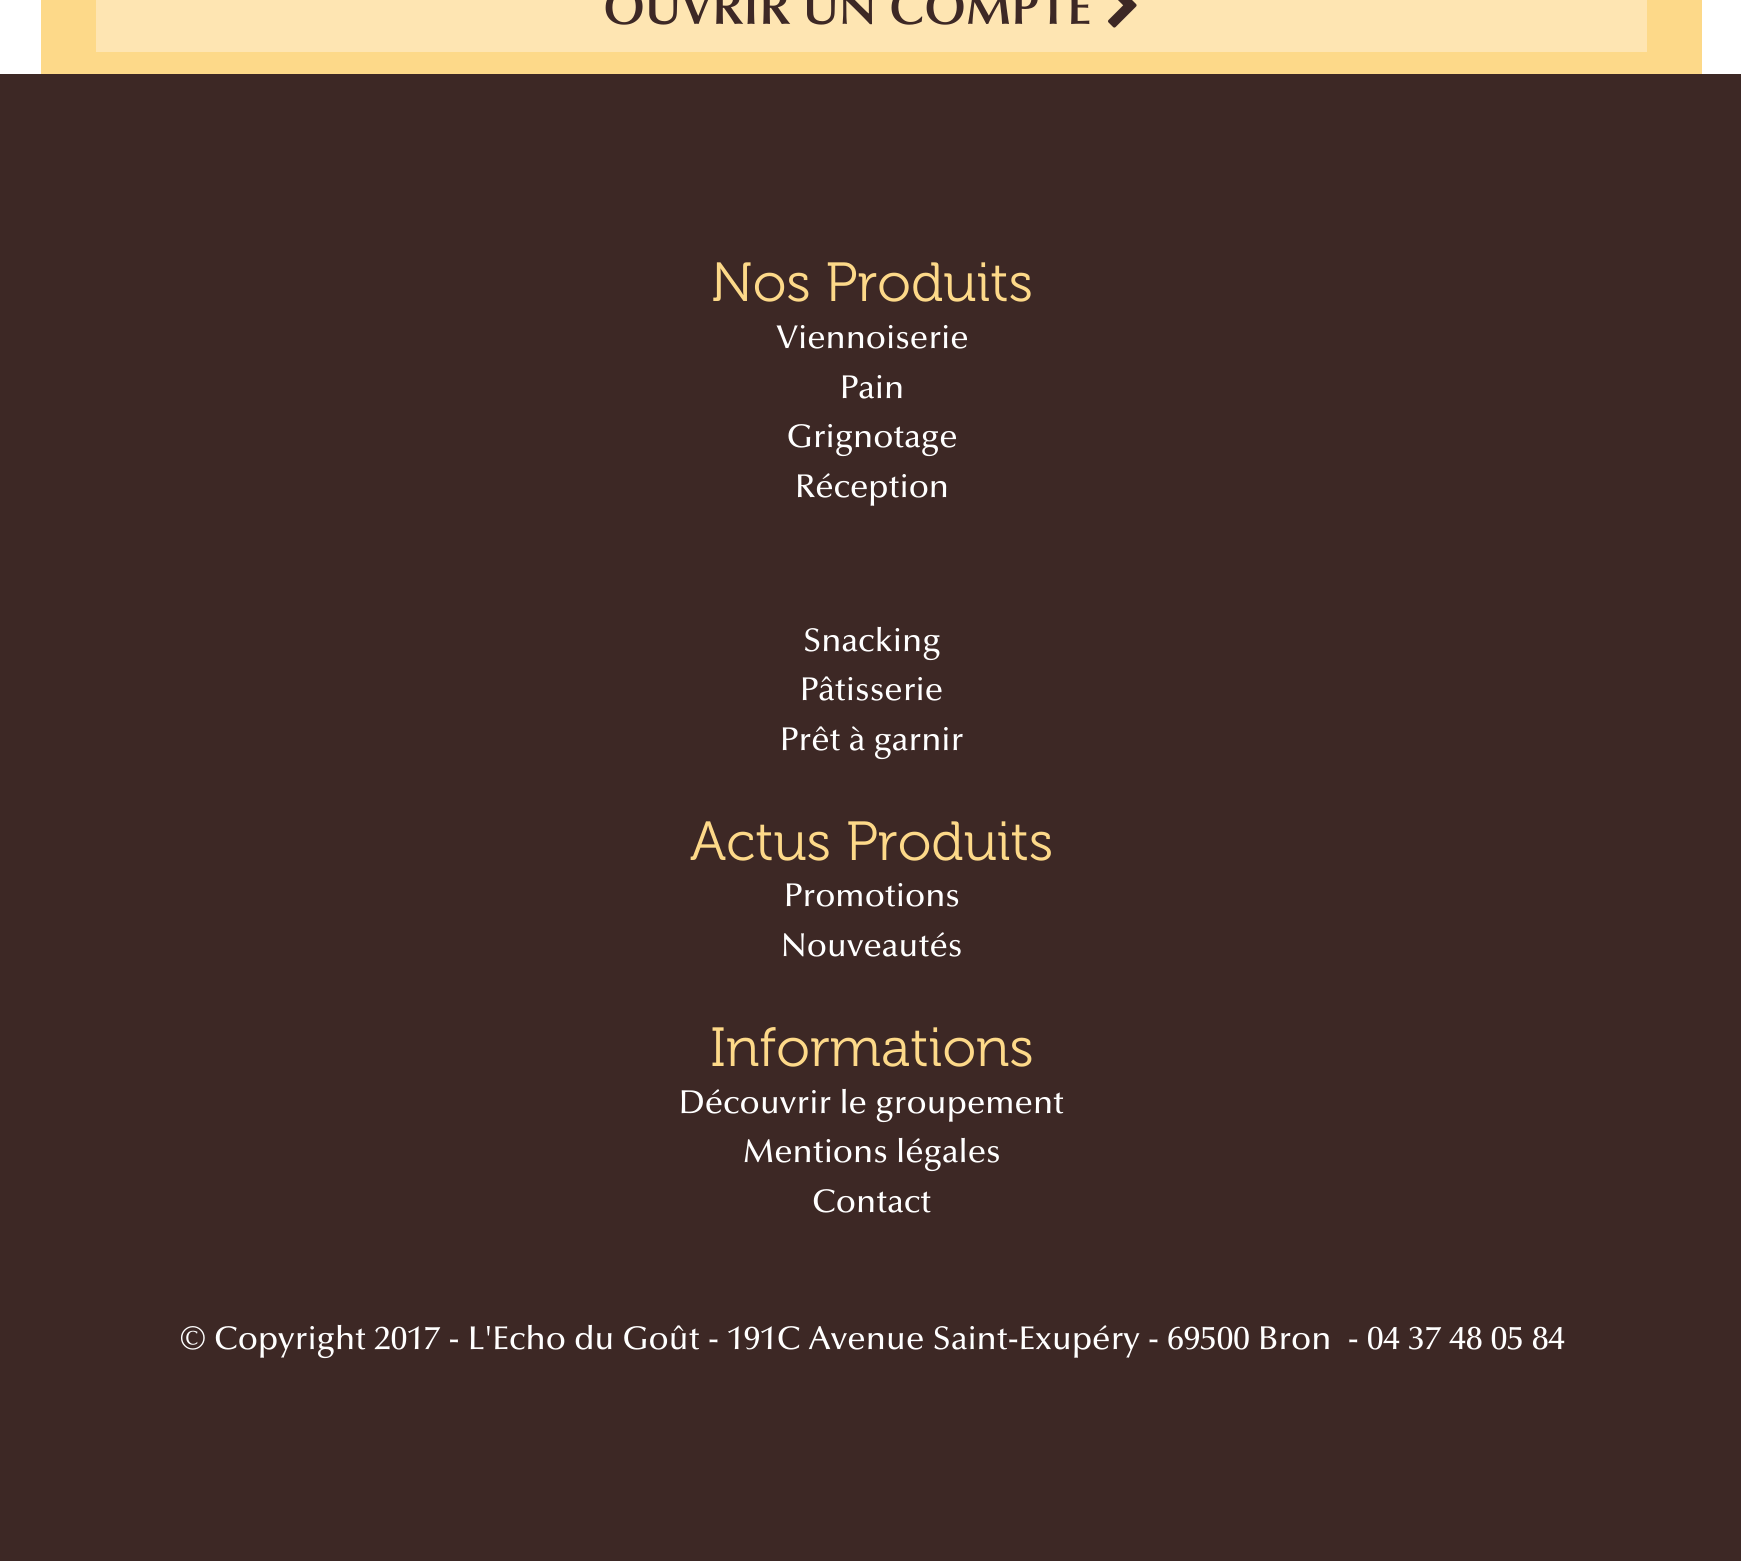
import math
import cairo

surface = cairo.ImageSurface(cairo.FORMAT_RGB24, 1741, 1561)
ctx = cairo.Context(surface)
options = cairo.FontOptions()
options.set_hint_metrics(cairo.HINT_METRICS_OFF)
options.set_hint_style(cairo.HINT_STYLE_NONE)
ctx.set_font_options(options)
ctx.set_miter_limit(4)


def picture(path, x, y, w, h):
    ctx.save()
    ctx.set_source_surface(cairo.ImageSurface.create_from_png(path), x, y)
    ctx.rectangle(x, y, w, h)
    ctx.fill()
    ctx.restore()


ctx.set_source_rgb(1, 1, 1)
ctx.paint()
ctx.set_source_rgb(0.992, 0.851, 0.537)
ctx.rectangle(41, 0, 1661, 74)
ctx.fill()
ctx.set_source_rgb(0.996, 0.898, 0.698)
ctx.rectangle(96, 0, 1551, 52)
ctx.fill()
ctx.select_font_face("Optima SemiBold")
ctx.set_font_size(49.5)
ctx.set_source_rgb(0.239, 0.157, 0.145)
ctx.move_to(603, 24)
ctx.show_text("OUVRIR UN COMPTE")
picture("img1.png", 1108, 0, 29, 28)
ctx.rectangle(0, 74, 1741, 1487)
ctx.fill()
ctx.select_font_face("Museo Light")
ctx.set_font_size(55)
ctx.set_source_rgb(0.992, 0.851, 0.537)
ctx.move_to(711, 301)
ctx.show_text("Nos Produits")
ctx.select_font_face("Optima Medium")
ctx.set_font_size(33)
ctx.set_source_rgb(1, 1, 1)
ctx.move_to(776, 348)
ctx.show_text("Viennoiserie")
ctx.move_to(840, 398)
ctx.show_text("Pain")
ctx.move_to(787, 447)
ctx.show_text("Grignotage")
ctx.move_to(795, 497)
ctx.show_text("Réception")
ctx.move_to(803, 651)
ctx.show_text("Snacking")
ctx.move_to(800, 700)
ctx.show_text("Pâtisserie")
ctx.move_to(780, 750)
ctx.show_text("Prêt à garnir")
ctx.select_font_face("Museo Light")
ctx.set_font_size(55)
ctx.set_source_rgb(0.992, 0.851, 0.537)
ctx.move_to(690, 860)
ctx.show_text("Actus Produits")
ctx.select_font_face("Optima Medium")
ctx.set_font_size(33)
ctx.set_source_rgb(1, 1, 1)
ctx.move_to(784, 906)
ctx.show_text("Promotions")
ctx.move_to(781, 956)
ctx.show_text("Nouveautés")
ctx.select_font_face("Museo Light")
ctx.set_font_size(55)
ctx.set_source_rgb(0.992, 0.851, 0.537)
ctx.move_to(710, 1066)
ctx.show_text("Informations")
ctx.select_font_face("Optima Medium")
ctx.set_font_size(33)
ctx.set_source_rgb(1, 1, 1)
ctx.move_to(679, 1113)
ctx.show_text("Découvrir le groupement")
ctx.move_to(743, 1162)
ctx.show_text("Mentions légales")
ctx.move_to(812, 1212)
ctx.show_text("Contact")
ctx.move_to(180, 1349)
ctx.show_text("© Copyright 2017 - L'Echo du Goût - 191C Avenue Saint-Exupéry - 69500 Bron  - 04 37 48 05 84")
surface.write_to_png("page.png")
